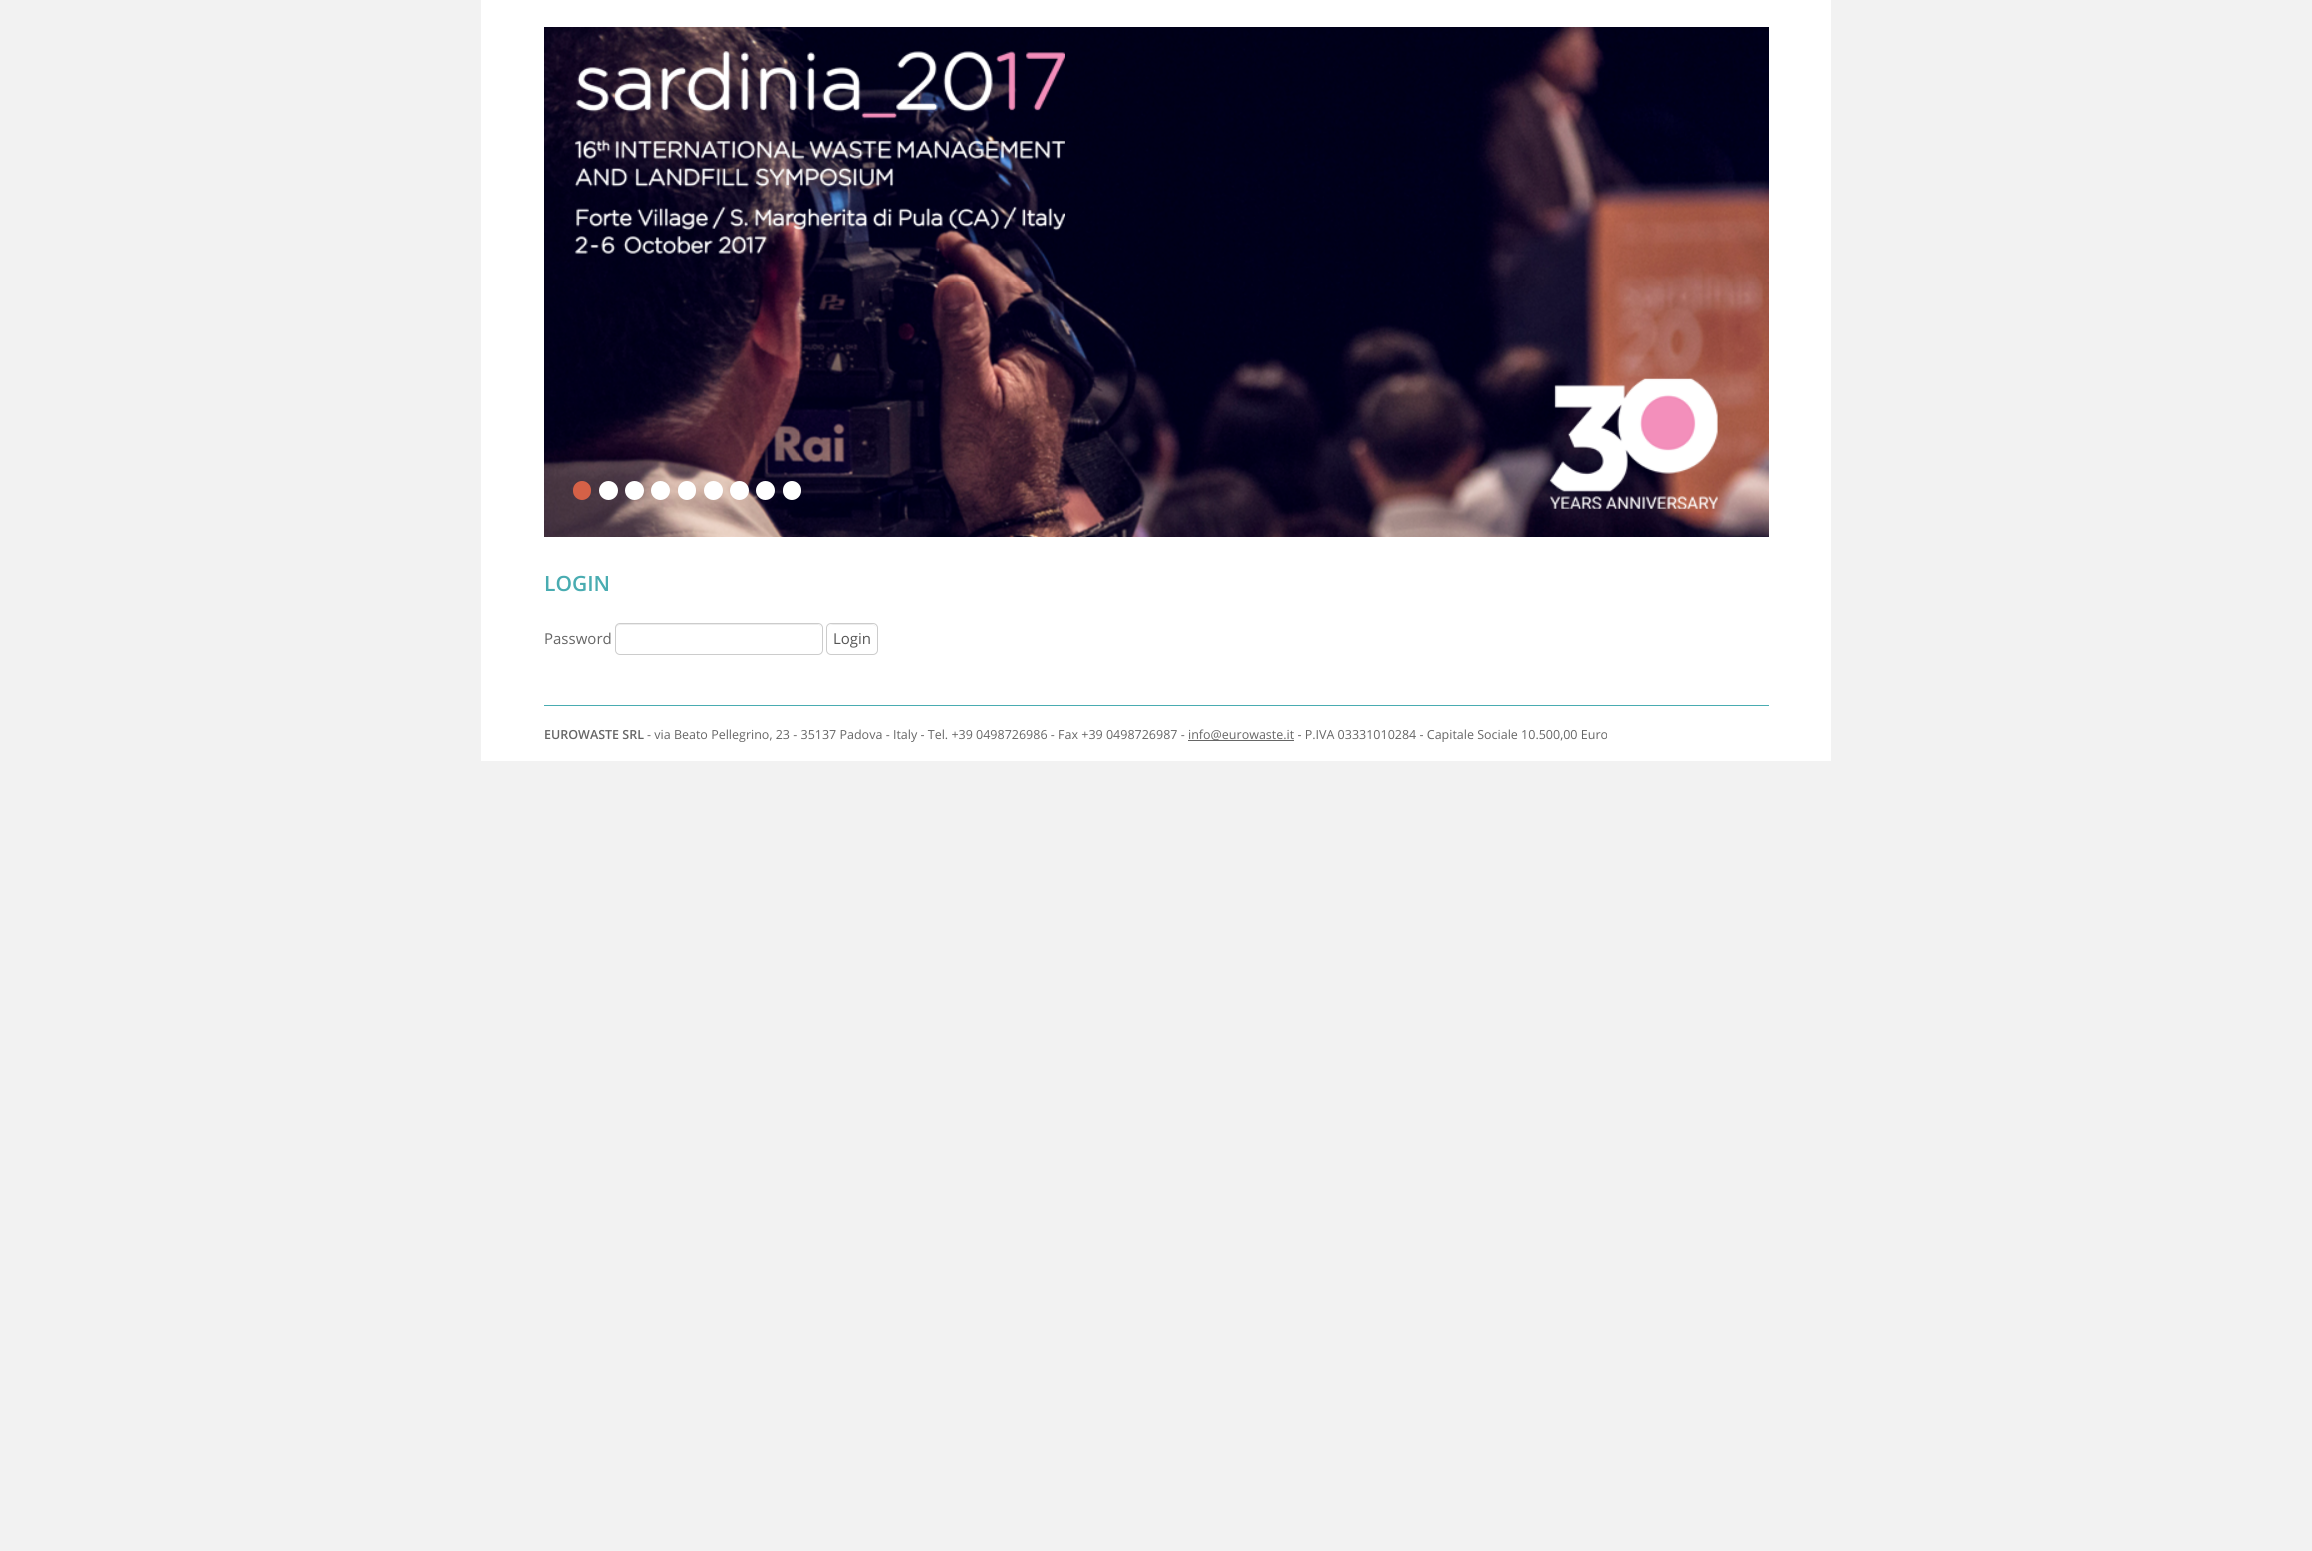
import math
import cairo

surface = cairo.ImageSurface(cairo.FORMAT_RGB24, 2312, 1551)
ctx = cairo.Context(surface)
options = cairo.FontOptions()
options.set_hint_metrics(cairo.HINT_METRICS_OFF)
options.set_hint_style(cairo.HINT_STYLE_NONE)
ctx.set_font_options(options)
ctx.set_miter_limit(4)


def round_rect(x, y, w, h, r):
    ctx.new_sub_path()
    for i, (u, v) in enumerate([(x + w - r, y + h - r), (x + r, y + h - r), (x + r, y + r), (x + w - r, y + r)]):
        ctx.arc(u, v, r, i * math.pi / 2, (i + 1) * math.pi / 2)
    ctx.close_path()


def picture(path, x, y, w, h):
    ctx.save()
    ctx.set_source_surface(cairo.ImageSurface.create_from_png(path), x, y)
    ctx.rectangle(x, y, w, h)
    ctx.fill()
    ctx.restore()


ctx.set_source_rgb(0.949, 0.949, 0.949)
ctx.paint()
ctx.set_source_rgb(1, 1, 1)
ctx.rectangle(481, 0, 1350, 761)
ctx.fill()
picture("img1.png", 544, 27, 1225, 510)
ctx.set_source_rgb(0.835, 0.38, 0.278)
round_rect(573, 481, 18, 19, 9)
ctx.fill()
ctx.set_source_rgb(1, 1, 1)
ctx.arc(608.5, 490.5, 9.5, 0, 2 * math.pi)
ctx.fill()
ctx.arc(634.5, 490.5, 9.5, 0, 2 * math.pi)
ctx.fill()
ctx.arc(660.5, 490.5, 9.5, 0, 2 * math.pi)
ctx.fill()
round_rect(678, 481, 18, 19, 9)
ctx.fill()
ctx.arc(713.5, 490.5, 9.5, 0, 2 * math.pi)
ctx.fill()
ctx.arc(739.5, 490.5, 9.5, 0, 2 * math.pi)
ctx.fill()
ctx.arc(765.5, 490.5, 9.5, 0, 2 * math.pi)
ctx.fill()
round_rect(783, 481, 18, 19, 9)
ctx.fill()
picture("img2.png", 574, 51, 491, 203)
picture("img3.png", 1549, 378, 169, 131)
ctx.select_font_face("Open Sans SemiBold")
ctx.set_font_size(21)
ctx.set_source_rgb(0.286, 0.675, 0.694)
ctx.move_to(544, 591)
ctx.show_text("LOGIN")
ctx.select_font_face("Open Sans")
ctx.set_font_size(15)
ctx.set_source_rgb(0.4, 0.4, 0.4)
ctx.move_to(544, 644)
ctx.show_text("Password")
ctx.set_source_rgb(0.925, 0.925, 0.925)
ctx.new_path()
ctx.move_to(620, 625)
ctx.line_to(818, 625)
ctx.curve_to(820, 625, 821, 627, 821, 629)
ctx.line_to(821, 628)
ctx.curve_to(821, 626, 819, 624, 817, 624)
ctx.line_to(620, 624)
ctx.curve_to(618, 624, 616, 626, 616, 628)
ctx.line_to(616, 629)
ctx.curve_to(616, 627, 618, 625, 620, 625)
ctx.close_path()
ctx.fill()
round_rect(615.5, 623.5, 207, 31, 4.5)
ctx.set_source_rgb(0.8, 0.8, 0.8)
ctx.set_line_width(1)
ctx.stroke()
ctx.set_source_rgb(0.925, 0.925, 0.925)
ctx.new_path()
ctx.move_to(831, 625)
ctx.line_to(872, 625)
ctx.curve_to(875, 625, 876, 627, 876, 629)
ctx.curve_to(876, 623, 870, 624, 865, 624)
ctx.line_to(839, 624)
ctx.curve_to(834, 624, 828, 623, 828, 629)
ctx.curve_to(828, 627, 829, 625, 831, 625)
ctx.close_path()
ctx.fill()
round_rect(826.5, 623.5, 51, 31, 4.5)
ctx.set_source_rgb(0.8, 0.8, 0.8)
ctx.stroke()
ctx.set_source_rgb(0.333, 0.333, 0.333)
ctx.move_to(833, 644)
ctx.show_text("Login")
ctx.set_source_rgb(0.286, 0.675, 0.694)
ctx.rectangle(544, 705, 1225, 1)
ctx.fill()
ctx.select_font_face("Open Sans SemiBold")
ctx.set_font_size(12.5)
ctx.set_source_rgb(0.4, 0.4, 0.4)
ctx.move_to(544, 739)
ctx.show_text("EUROWASTE SRL")
ctx.select_font_face("Open Sans")
ctx.move_to(647, 739)
ctx.show_text("- via Beato Pellegrino, 23 - 35137 Padova - Italy - Tel. +39 0498726986 - Fax +39 0498726987 -")
ctx.rectangle(1188, 740, 106, 1)
ctx.fill()
ctx.move_to(1188, 739)
ctx.show_text("info@eurowaste.it - P.IVA 03331010284 - Capitale Sociale 10.500,00 Euro")
surface.write_to_png("page.png")
